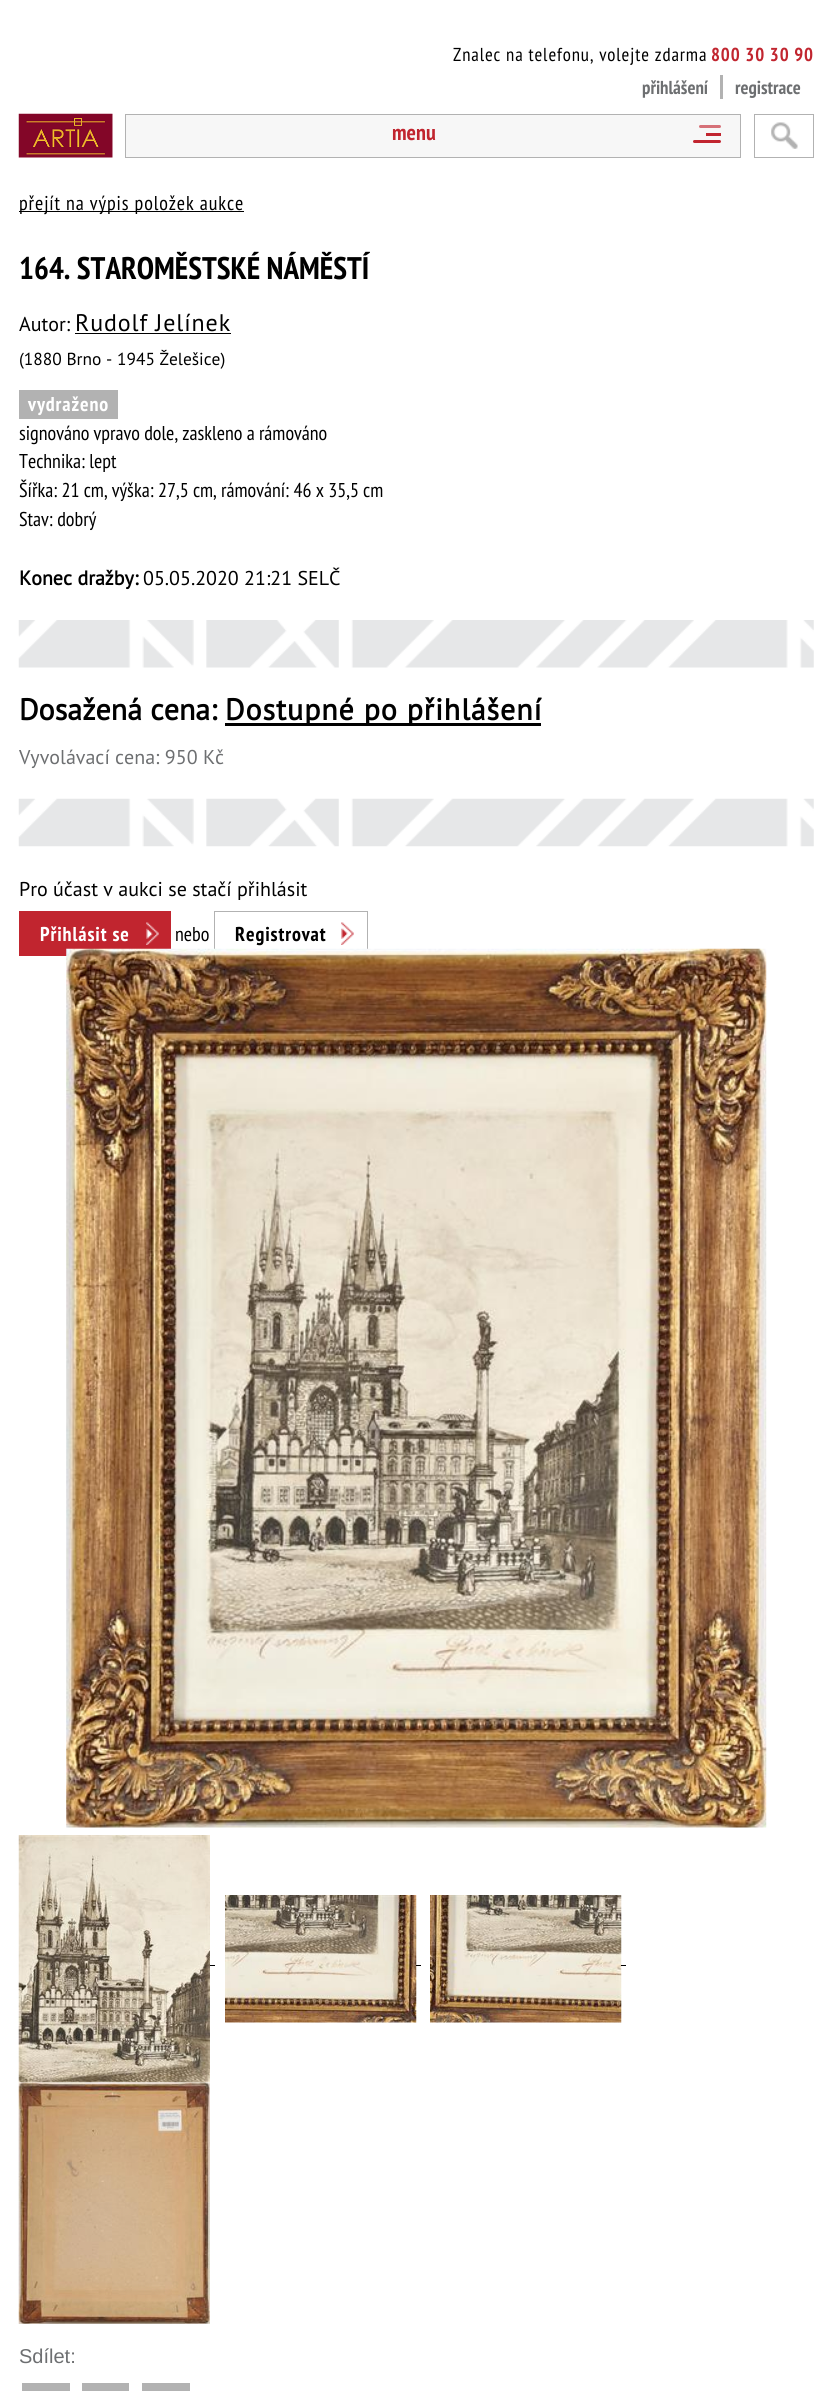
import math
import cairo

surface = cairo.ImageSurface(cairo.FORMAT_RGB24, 832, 2391)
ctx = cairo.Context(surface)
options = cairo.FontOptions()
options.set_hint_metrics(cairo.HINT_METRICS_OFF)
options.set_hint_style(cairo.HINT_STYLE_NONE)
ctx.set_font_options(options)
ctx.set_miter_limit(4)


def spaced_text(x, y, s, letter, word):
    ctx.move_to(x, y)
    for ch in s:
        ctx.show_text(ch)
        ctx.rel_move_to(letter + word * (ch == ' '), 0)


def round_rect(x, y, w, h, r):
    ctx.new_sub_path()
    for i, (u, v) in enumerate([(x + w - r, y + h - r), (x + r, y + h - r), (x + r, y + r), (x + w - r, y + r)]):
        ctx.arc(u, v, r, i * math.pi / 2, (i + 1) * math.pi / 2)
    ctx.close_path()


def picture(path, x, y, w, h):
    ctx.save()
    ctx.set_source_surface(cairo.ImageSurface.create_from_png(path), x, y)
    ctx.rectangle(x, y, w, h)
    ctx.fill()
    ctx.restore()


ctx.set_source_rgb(1, 1, 1)
ctx.paint()
ctx.select_font_face("PT Sans Narrow")
ctx.set_font_size(18.75)
ctx.set_source_rgb(0, 0, 0)
spaced_text(453, 61, "Znalec na telefonu, volejte zdarma", 0.9, 0)
ctx.select_font_face("PT Sans Narrow", cairo.FONT_SLANT_NORMAL, cairo.FONT_WEIGHT_BOLD)
ctx.set_source_rgb(0.757, 0.145, 0.184)
spaced_text(711, 61, "800 30 30 90", 0.9, 0)
ctx.set_source_rgb(0.427, 0.435, 0.443)
ctx.move_to(642, 94)
ctx.show_text("přihlášení")
ctx.set_source_rgb(0.698, 0.698, 0.698)
ctx.rectangle(720, 75, 3, 24)
ctx.fill()
ctx.set_source_rgb(0.427, 0.435, 0.443)
ctx.move_to(735, 94)
ctx.show_text("registrace")
picture("img1.png", 18, 113, 95, 45)
ctx.set_source_rgb(0.965, 0.965, 0.965)
ctx.rectangle(125.5, 114.5, 615, 43)
ctx.fill_preserve()
ctx.set_source_rgb(0.698, 0.698, 0.698)
ctx.set_line_width(1)
ctx.stroke()
ctx.set_font_size(22)
ctx.set_source_rgb(0.757, 0.145, 0.184)
ctx.move_to(392, 140)
ctx.show_text("menu")
ctx.rectangle(706, 133, 15, 3)
ctx.fill()
ctx.set_source_rgb(0.839, 0.443, 0.471)
round_rect(699, 125, 22, 3, 1.5)
ctx.fill()
ctx.set_source_rgb(0.757, 0.145, 0.184)
round_rect(693, 140, 28, 3, 1.5)
ctx.fill()
picture("img2.png", 771, 122, 27, 27)
ctx.rectangle(754.5, 114.5, 59, 43)
ctx.set_source_rgb(0.698, 0.698, 0.698)
ctx.stroke()
ctx.set_source_rgb(0, 0, 0)
ctx.rectangle(19, 211, 225, 1)
ctx.fill()
ctx.select_font_face("PT Sans Narrow")
ctx.set_font_size(20)
spaced_text(19, 210, "přejít na výpis položek aukce", 0.9, 0)
ctx.select_font_face("PT Sans Narrow", cairo.FONT_SLANT_NORMAL, cairo.FONT_WEIGHT_BOLD)
ctx.set_font_size(31.25)
ctx.move_to(19, 279)
ctx.show_text("164. STAROMĚSTSKÉ NÁMĚSTÍ")
ctx.select_font_face("PT Sans")
ctx.set_font_size(20)
ctx.move_to(19, 331)
ctx.show_text("Autor:")
ctx.set_font_size(24)
spaced_text(75, 331, "Rudolf Jelínek", 0.9, 0)
ctx.rectangle(75, 333, 156, 1)
ctx.fill()
ctx.set_font_size(17.4)
ctx.move_to(19, 365)
ctx.show_text("(1880 Brno - 1945 Želešice)")
ctx.set_source_rgb(0.698, 0.698, 0.698)
ctx.rectangle(19, 390, 99, 29)
ctx.fill()
ctx.select_font_face("PT Sans Narrow", cairo.FONT_SLANT_NORMAL, cairo.FONT_WEIGHT_BOLD)
ctx.set_font_size(20)
ctx.set_source_rgb(1, 1, 1)
spaced_text(28, 411, "vydraženo", 0.9, 0)
ctx.select_font_face("PT Sans Narrow")
ctx.set_source_rgb(0, 0, 0)
ctx.move_to(19, 440)
ctx.show_text("signováno vpravo dole, zaskleno a rámováno")
ctx.move_to(19, 468)
ctx.show_text("Technika: lept")
ctx.move_to(19, 497)
ctx.show_text("Šířka: 21 cm, výška: 27,5 cm, rámování: 46 x 35,5 cm")
ctx.move_to(19, 526)
ctx.show_text("Stav: dobrý")
ctx.select_font_face("PT Sans", cairo.FONT_SLANT_NORMAL, cairo.FONT_WEIGHT_BOLD)
ctx.move_to(19, 585)
ctx.show_text("Konec dražby:")
ctx.select_font_face("PT Sans")
ctx.move_to(143, 585)
ctx.show_text("05.05.2020 21:21 SELČ")
picture("img3.png", 18, 620, 796, 48)
ctx.select_font_face("PT Sans", cairo.FONT_SLANT_NORMAL, cairo.FONT_WEIGHT_BOLD)
ctx.set_font_size(30)
ctx.move_to(19, 720)
ctx.show_text("Dosažená cena:")
ctx.rectangle(225, 723, 316, 3)
ctx.fill()
spaced_text(225, 720, "Dostupné po přihlášení", 0.9, 0)
ctx.select_font_face("PT Sans")
ctx.set_font_size(20)
ctx.set_source_rgb(0.427, 0.435, 0.443)
ctx.move_to(19, 764)
ctx.show_text("Vyvolávací cena: 950 Kč")
picture("img4.png", 18, 798, 796, 49)
ctx.set_source_rgb(0, 0, 0)
ctx.move_to(19, 896)
ctx.show_text("Pro účast v aukci se stačí přihlásit")
ctx.set_source_rgb(0.757, 0.145, 0.184)
ctx.rectangle(19, 911, 152, 45)
ctx.fill()
ctx.select_font_face("PT Sans Narrow", cairo.FONT_SLANT_NORMAL, cairo.FONT_WEIGHT_BOLD)
ctx.set_source_rgb(1, 1, 1)
spaced_text(40, 941, "Přihlásit se", 0.9, 0)
picture("img5.png", 146, 922, 13, 23)
ctx.select_font_face("PT Sans Narrow")
ctx.set_source_rgb(0, 0, 0)
ctx.move_to(175, 941)
ctx.show_text("nebo")
picture("img6.png", 341, 922, 13, 23)
ctx.rectangle(214.5, 911.5, 153, 44)
ctx.set_source_rgb(0.698, 0.698, 0.698)
ctx.stroke()
ctx.select_font_face("PT Sans Narrow", cairo.FONT_SLANT_NORMAL, cairo.FONT_WEIGHT_BOLD)
ctx.set_source_rgb(0, 0, 0)
spaced_text(235, 941, "Registrovat", 0.9, 0)
picture("img7.png", 66, 948, 701, 880)
picture("img8.png", 18, 1835, 192, 248)
ctx.rectangle(210, 1965, 5, 1)
ctx.fill()
picture("img9.png", 225, 1895, 192, 128)
ctx.rectangle(416, 1965, 5, 1)
ctx.fill()
picture("img10.png", 430, 1895, 192, 128)
ctx.rectangle(621, 1965, 5, 1)
ctx.fill()
picture("img11.png", 18, 2082, 192, 242)
ctx.select_font_face("Liberation Sans")
ctx.set_source_rgb(0.427, 0.435, 0.443)
ctx.move_to(19, 2363)
ctx.show_text("Sdílet:")
ctx.set_source_rgb(0.698, 0.698, 0.698)
ctx.rectangle(22, 2383, 48, 8)
ctx.fill()
ctx.rectangle(82, 2383, 47, 8)
ctx.fill()
ctx.rectangle(142, 2383, 48, 8)
ctx.fill()
surface.write_to_png("page.png")
